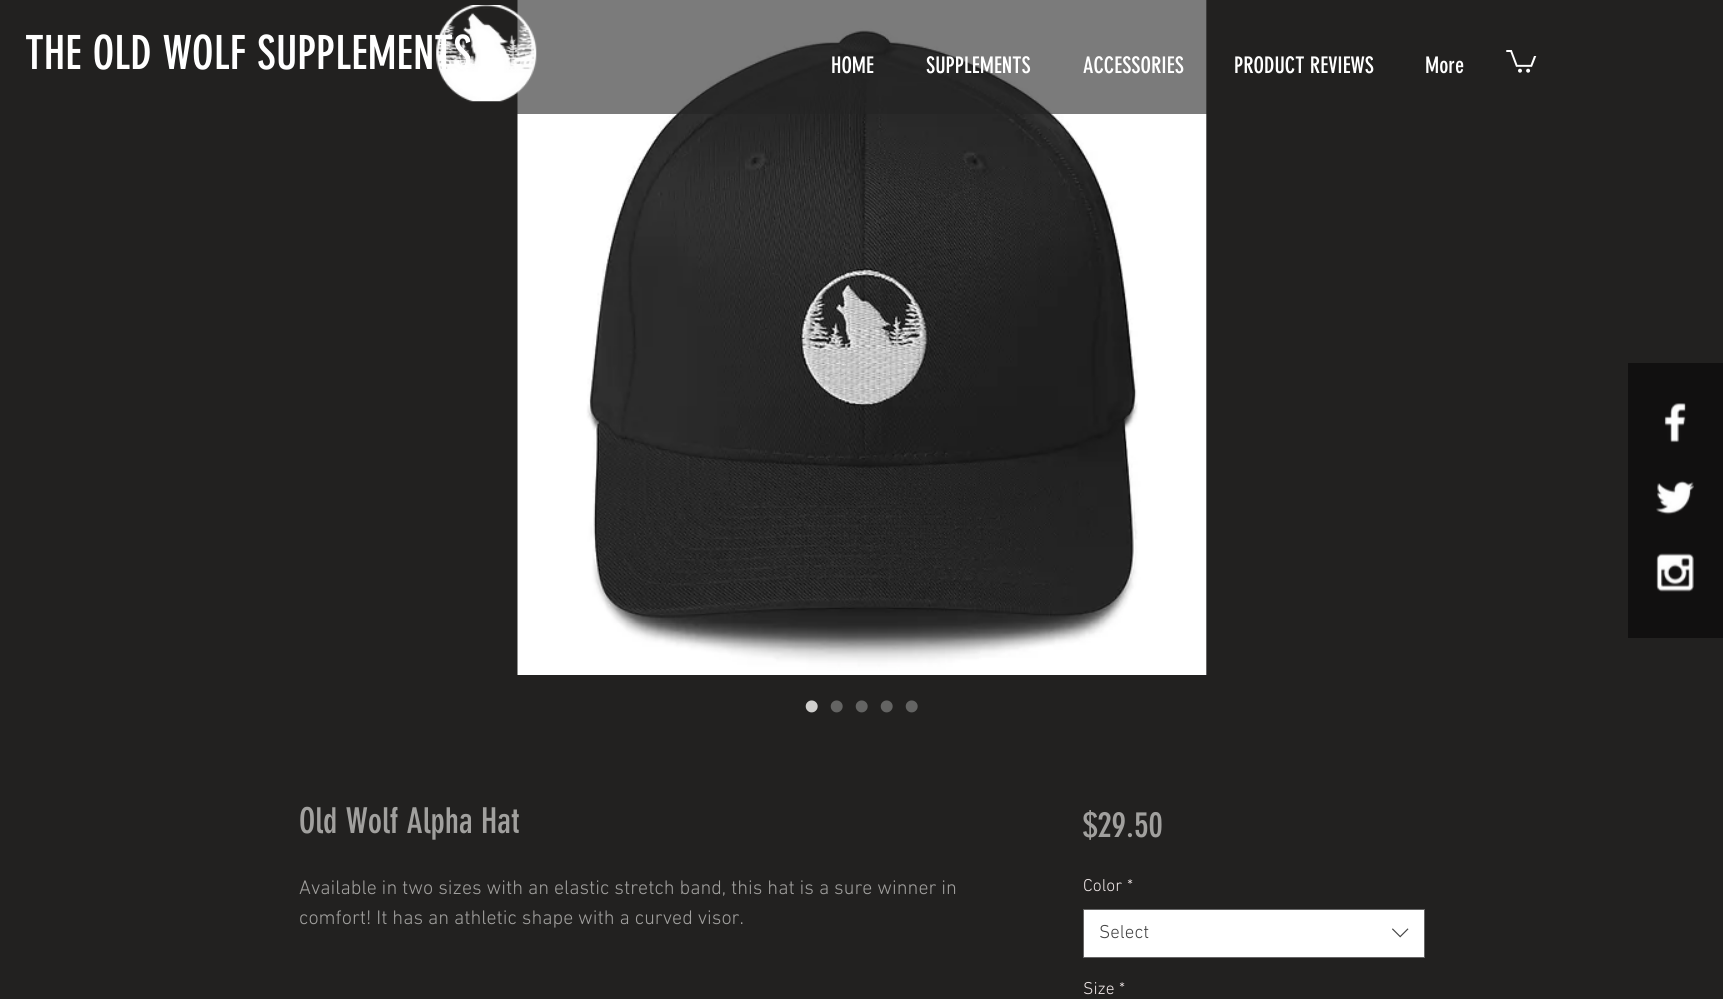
import math
import cairo

surface = cairo.ImageSurface(cairo.FORMAT_RGB24, 1723, 999)
ctx = cairo.Context(surface)
options = cairo.FontOptions()
options.set_hint_metrics(cairo.HINT_METRICS_OFF)
options.set_hint_style(cairo.HINT_STYLE_NONE)
ctx.set_font_options(options)
ctx.set_miter_limit(4)


def picture(path, x, y, w, h):
    ctx.save()
    ctx.set_source_surface(cairo.ImageSurface.create_from_png(path), x, y)
    ctx.rectangle(x, y, w, h)
    ctx.fill()
    ctx.restore()


ctx.set_source_rgb(0.133, 0.129, 0.125)
ctx.paint()
ctx.select_font_face("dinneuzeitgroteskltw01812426")
ctx.set_font_size(46.25)
ctx.set_source_rgb(1, 1, 1)
ctx.move_to(25, 69)
ctx.show_text("THE OLD WOLF SUPPLEMENTS")
picture("img6.png", 517, 0, 690, 675)
ctx.set_source_rgba(0.137, 0.137, 0.137, 0.6)
ctx.rectangle(517, 0, 690, 114)
ctx.fill()
picture("img1.png", 436, 5, 101, 97)
ctx.set_font_size(22.5)
ctx.set_source_rgb(1, 1, 1)
ctx.move_to(831, 73)
ctx.show_text("HOME")
ctx.move_to(926, 73)
ctx.show_text("SUPPLEMENTS")
ctx.move_to(1083, 73)
ctx.show_text("ACCESSORIES")
ctx.move_to(1234, 73)
ctx.show_text("PRODUCT REVIEWS")
ctx.move_to(1425, 73)
ctx.show_text("More")
picture("img2.png", 1506, 50, 31, 23)
ctx.set_source_rgb(0.067, 0.063, 0.063)
ctx.rectangle(1628, 363, 95, 275)
ctx.fill()
picture("img3.png", 1664, 403, 22, 40)
picture("img4.png", 1656, 480, 38, 35)
picture("img5.png", 1656, 553, 38, 39)
ctx.select_font_face("Liberation Sans")
ctx.set_font_size(44)
ctx.set_source_rgb(0.816, 0.812, 0.804)
ctx.move_to(804, 721)
ctx.show_text("•")
ctx.set_source_rgb(0.392, 0.392, 0.388)
ctx.move_to(829, 721)
ctx.show_text("•")
ctx.move_to(854, 721)
ctx.show_text("•")
ctx.move_to(879, 721)
ctx.show_text("•")
ctx.move_to(904, 721)
ctx.show_text("•")
ctx.select_font_face("dinneuzeitgroteskltw01812426")
ctx.set_font_size(35)
ctx.set_source_rgb(0.631, 0.627, 0.62)
ctx.move_to(299, 833)
ctx.show_text("Old Wolf Alpha Hat")
ctx.select_font_face("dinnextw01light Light")
ctx.set_font_size(20)
ctx.move_to(299, 894)
ctx.show_text("Available in two sizes with an elastic stretch band, this hat is a sure winner in")
ctx.move_to(299, 924)
ctx.show_text("comfort! It has an athletic shape with a curved visor.")
ctx.select_font_face("dinneuzeitgroteskltw01812426")
ctx.set_font_size(35)
ctx.move_to(1083, 837)
ctx.show_text("$29.50")
ctx.select_font_face("dinnextw01light Light")
ctx.set_font_size(17.5)
ctx.set_source_rgb(0.933, 0.902, 0.902)
ctx.move_to(1083, 891)
ctx.show_text("Color")
ctx.move_to(1127, 891)
ctx.show_text("*")
ctx.set_source_rgb(1, 1, 1)
ctx.rectangle(1083.5, 909.5, 341, 48)
ctx.fill_preserve()
ctx.set_source_rgb(0.4, 0.4, 0.4)
ctx.set_line_width(1)
ctx.stroke()
ctx.set_font_size(19)
ctx.set_source_rgb(0.267, 0.267, 0.267)
ctx.move_to(1099, 938)
ctx.show_text("Select")
picture("img7.png", 1392, 928, 17, 10)
ctx.set_font_size(17.5)
ctx.set_source_rgb(0.933, 0.902, 0.902)
ctx.move_to(1083, 994)
ctx.show_text("Size")
ctx.move_to(1119, 994)
ctx.show_text("*")
surface.write_to_png("page.png")
